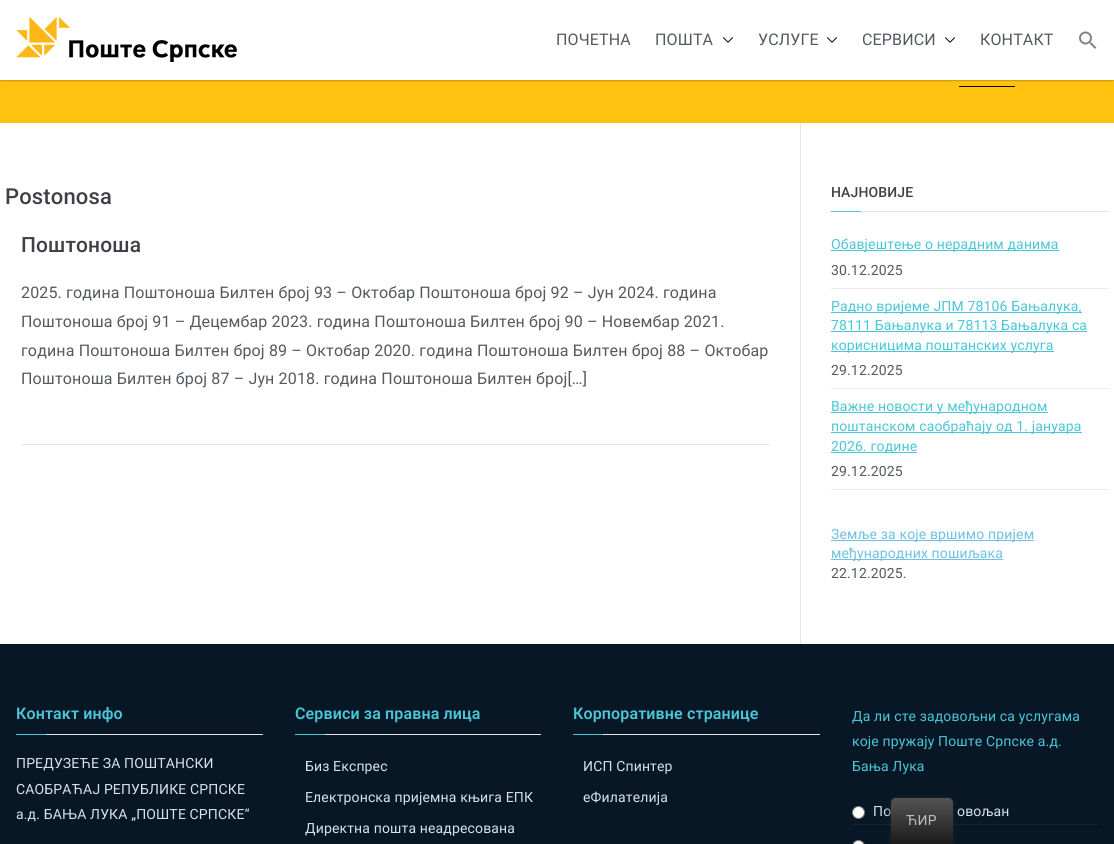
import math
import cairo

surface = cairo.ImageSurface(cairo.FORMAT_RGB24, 1114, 844)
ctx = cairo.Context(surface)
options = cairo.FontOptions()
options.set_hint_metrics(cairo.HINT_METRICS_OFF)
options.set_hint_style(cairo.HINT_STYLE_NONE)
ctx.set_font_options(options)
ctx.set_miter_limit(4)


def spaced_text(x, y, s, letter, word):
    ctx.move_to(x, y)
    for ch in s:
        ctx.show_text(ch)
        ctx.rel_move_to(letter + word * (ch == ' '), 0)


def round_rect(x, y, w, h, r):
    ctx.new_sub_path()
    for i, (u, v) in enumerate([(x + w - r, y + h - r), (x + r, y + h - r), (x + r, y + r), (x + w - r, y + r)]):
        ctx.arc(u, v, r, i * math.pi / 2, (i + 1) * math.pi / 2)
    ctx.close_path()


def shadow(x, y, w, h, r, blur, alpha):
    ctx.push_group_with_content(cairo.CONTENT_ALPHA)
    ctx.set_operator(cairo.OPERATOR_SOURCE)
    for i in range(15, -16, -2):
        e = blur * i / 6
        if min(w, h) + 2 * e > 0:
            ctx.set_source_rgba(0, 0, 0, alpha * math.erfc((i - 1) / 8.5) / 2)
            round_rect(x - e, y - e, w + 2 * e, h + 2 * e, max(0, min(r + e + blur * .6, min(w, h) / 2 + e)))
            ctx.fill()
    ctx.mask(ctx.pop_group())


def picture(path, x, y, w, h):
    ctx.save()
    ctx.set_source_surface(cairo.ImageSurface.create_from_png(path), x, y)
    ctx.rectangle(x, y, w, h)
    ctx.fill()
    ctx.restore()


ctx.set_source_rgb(1, 0.761, 0.055)
ctx.paint()
ctx.set_source_rgb(0, 0, 0)
shadow(0, 1, 1114, 80, 0, 0.5, 0.2)
ctx.set_source_rgb(1, 1, 1)
ctx.rectangle(0, 0, 1114, 80)
ctx.fill()
picture("img1.png", 16, 17, 221, 45)
ctx.select_font_face("Roboto")
ctx.set_font_size(16)
ctx.set_source_rgb(0.329, 0.349, 0.373)
spaced_text(556, 45, "ПОЧЕТНА", 0.15, 0)
spaced_text(655, 45, "ПОШТА", 0.15, 0)
picture("img2.png", 723, 37, 10, 6)
spaced_text(758, 45, "УСЛУГЕ", 0.15, 0)
picture("img2.png", 827, 37, 10, 6)
spaced_text(862, 45, "СЕРВИСИ", 0.15, 0)
picture("img2.png", 945, 37, 10, 6)
spaced_text(980, 45, "КОНТАКТ", 0.15, 0)
picture("img3.png", 1079, 31, 18, 18)
ctx.set_source_rgb(0, 0, 0)
ctx.rectangle(959, 86, 56, 1)
ctx.fill()
ctx.set_source_rgb(1, 1, 1)
ctx.rectangle(0, 123, 1114, 521)
ctx.fill()
ctx.select_font_face("Roboto Medium")
ctx.set_font_size(22)
ctx.set_source_rgb(0.247, 0.247, 0.275)
spaced_text(5, 204, "Postonosa", 0.15, 0)
ctx.set_source_rgb(0.894, 0.894, 0.906)
ctx.rectangle(21, 444, 749, 1)
ctx.fill()
ctx.set_font_size(21)
ctx.set_source_rgb(0.247, 0.247, 0.275)
spaced_text(21, 252, "Пoштоноша", 0.15, 0)
ctx.select_font_face("Roboto")
ctx.set_font_size(16)
ctx.set_source_rgb(0.329, 0.349, 0.373)
spaced_text(21, 298, "2025. година Поштоноша Билтен број 93 – Октобар Поштоноша број 92 – Јун 2024. година", 0.15, 0)
spaced_text(21, 327, "Поштоноша број 91 – Децембар 2023. година Поштоноша Билтен број 90 – Новембар 2021.", 0.15, 0)
spaced_text(21, 356, "година Поштоноша Билтен број 89 – Октобар 2020. година Поштоноша Билтен број 88 – Октобар", 0.15, 0)
spaced_text(21, 384, "Поштоноша Билтен број 87 – Јун 2018. година Поштоноша Билтен број[…]", 0.15, 0)
ctx.set_source_rgb(0.894, 0.894, 0.906)
ctx.rectangle(800, 123, 1, 521)
ctx.fill()
ctx.rectangle(861, 211, 248, 1)
ctx.fill()
ctx.select_font_face("Roboto Medium")
ctx.set_font_size(14)
ctx.set_source_rgb(0.247, 0.247, 0.275)
spaced_text(831, 197, "НАЈНОВИЈЕ", 0.15, 0)
ctx.set_source_rgb(0.29, 0.776, 0.839)
ctx.rectangle(831, 211, 30, 1)
ctx.fill()
ctx.set_source_rgb(0.914, 0.925, 0.937)
ctx.rectangle(831, 288, 278, 1)
ctx.fill()
ctx.set_source_rgb(0.29, 0.776, 0.839)
ctx.rectangle(831, 250, 228, 1)
ctx.fill()
ctx.select_font_face("Roboto")
spaced_text(831, 249, "Обавјештење о нерадним данима", 0.15, 0)
ctx.set_source_rgb(0.329, 0.349, 0.373)
spaced_text(831, 275, "30.12.2025", 0.15, 0)
ctx.set_source_rgb(0.914, 0.925, 0.937)
ctx.rectangle(831, 388, 278, 1)
ctx.fill()
ctx.set_source_rgb(0.29, 0.776, 0.839)
ctx.rectangle(831, 312, 251, 1)
ctx.fill()
spaced_text(831, 311, "Радно вријеме ЈПМ 78106 Бањалука,", 0.15, 0)
ctx.rectangle(831, 331, 256, 1)
ctx.fill()
spaced_text(831, 330, "78111 Бањалука и 78113 Бањалука са", 0.15, 0)
ctx.rectangle(831, 351, 223, 1)
ctx.fill()
spaced_text(831, 350, "корисницима поштанских услуга", 0.15, 0)
ctx.set_source_rgb(0.329, 0.349, 0.373)
spaced_text(831, 375, "29.12.2025", 0.15, 0)
ctx.set_source_rgb(0.914, 0.925, 0.937)
ctx.rectangle(831, 489, 278, 1)
ctx.fill()
ctx.set_source_rgb(0.29, 0.776, 0.839)
ctx.rectangle(831, 412, 217, 1)
ctx.fill()
spaced_text(831, 411, "Важне новости у међународном", 0.15, 0)
ctx.rectangle(831, 432, 251, 1)
ctx.fill()
spaced_text(831, 431, "поштанском саобраћају од 1. јануара", 0.15, 0)
ctx.rectangle(831, 452, 86, 1)
ctx.fill()
spaced_text(831, 451, "2026. године", 0.15, 0)
ctx.set_source_rgb(0.329, 0.349, 0.373)
spaced_text(831, 476, "29.12.2025", 0.15, 0)
ctx.set_source_rgb(0.431, 0.757, 0.894)
ctx.rectangle(831, 540, 203, 1)
ctx.fill()
spaced_text(831, 539, "Земље за које вршимо пријем", 0.15, 0)
ctx.rectangle(831, 559, 172, 1)
ctx.fill()
spaced_text(831, 558, "међународних пошиљака", 0.15, 0)
ctx.set_source_rgb(0.329, 0.349, 0.373)
spaced_text(831, 578, "22.12.2025.", 0.15, 0)
ctx.set_source_rgb(0.031, 0.09, 0.149)
ctx.rectangle(0, 644, 1114, 200)
ctx.fill()
ctx.set_source_rgb(0.894, 0.894, 0.906)
ctx.rectangle(46, 734, 217, 1)
ctx.fill()
ctx.select_font_face("Roboto SemiBold")
ctx.set_font_size(16)
ctx.set_source_rgb(0.29, 0.776, 0.839)
spaced_text(16, 719, "Контакт инфо", 0.15, 0)
ctx.rectangle(16, 734, 30, 1)
ctx.fill()
ctx.select_font_face("Roboto")
ctx.set_font_size(14)
ctx.set_source_rgb(0.851, 0.886, 0.918)
spaced_text(16, 768, "ПРЕДУЗЕЋЕ ЗА ПОШТАНСКИ", 0.15, 0)
spaced_text(16, 794, "САОБРАЋАЈ РЕПУБЛИКЕ СРПСКЕ", 0.15, 0)
spaced_text(16, 819, "а.д. БАЊА ЛУКА „ПОШТЕ СРПСКЕ“", 0.15, 0)
ctx.set_source_rgb(0.894, 0.894, 0.906)
ctx.rectangle(325, 734, 216, 1)
ctx.fill()
ctx.select_font_face("Roboto SemiBold")
ctx.set_font_size(16)
ctx.set_source_rgb(0.29, 0.776, 0.839)
spaced_text(295, 719, "Сервиси за правна лица", 0.15, 0)
ctx.rectangle(295, 734, 30, 1)
ctx.fill()
ctx.select_font_face("Roboto")
ctx.set_font_size(14)
ctx.set_source_rgb(0.851, 0.886, 0.918)
spaced_text(305, 771, "Биз Експрес", 0.15, 0)
spaced_text(305, 802, "Електронска пријемна књига ЕПК", 0.15, 0)
spaced_text(305, 833, "Директна пошта неадресована", 0.15, 0)
ctx.set_source_rgb(0.894, 0.894, 0.906)
ctx.rectangle(603, 734, 217, 1)
ctx.fill()
ctx.select_font_face("Roboto SemiBold")
ctx.set_font_size(16)
ctx.set_source_rgb(0.29, 0.776, 0.839)
spaced_text(573, 719, "Корпоративне странице", 0.15, 0)
ctx.rectangle(573, 734, 30, 1)
ctx.fill()
ctx.select_font_face("Roboto")
ctx.set_font_size(14)
ctx.set_source_rgb(0.851, 0.886, 0.918)
spaced_text(583, 771, "ИСП Спинтер", 0.15, 0)
spaced_text(583, 802, "eФилателија", 0.15, 0)
ctx.set_source_rgb(0.29, 0.776, 0.839)
spaced_text(852, 721, "Да ли сте задовољни са услугама", 0.15, 0)
spaced_text(852, 746, "које пружају Поште Српске а.д.", 0.15, 0)
spaced_text(852, 771, "Бања Лука", 0.15, 0)
ctx.set_source_rgb(0.078, 0.137, 0.192)
ctx.rectangle(852, 824, 246, 1)
ctx.fill()
ctx.set_source_rgb(1, 1, 1)
ctx.arc(858.5, 812.5, 6, 0, 2 * math.pi)
ctx.fill_preserve()
ctx.set_source_rgb(0.463, 0.463, 0.463)
ctx.set_line_width(1)
ctx.stroke()
ctx.set_source_rgb(0.851, 0.886, 0.918)
spaced_text(873, 816, "По", 0.15, 0)
spaced_text(957, 816, "овољан", 0.15, 0)
ctx.set_source_rgb(1, 1, 1)
round_rect(852.5, 840.5, 12, 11, 6)
ctx.fill_preserve()
ctx.set_source_rgb(0.463, 0.463, 0.463)
ctx.stroke()
ctx.set_source_rgb(0.129, 0.129, 0.129)
shadow(891, 798, 62, 46, 5, 2.5, 1)
gradient = cairo.LinearGradient(922, 844, 922, 798)
gradient.add_color_stop_rgba(0, 0.106, 0.106, 0.106, 1)
gradient.add_color_stop_rgba(1, 0.329, 0.329, 0.329, 1)
ctx.set_source(gradient)
ctx.new_path()
ctx.move_to(896, 798)
ctx.line_to(948, 798)
ctx.curve_to(951, 798, 953, 800, 953, 803)
ctx.line_to(953, 844)
ctx.line_to(891, 844)
ctx.line_to(891, 803)
ctx.curve_to(891, 800, 893, 798, 896, 798)
ctx.close_path()
ctx.fill()
ctx.set_source_rgb(0.741, 0.741, 0.741)
spaced_text(906, 825, "ЋИР", 0.15, 0)
surface.write_to_png("page.png")
